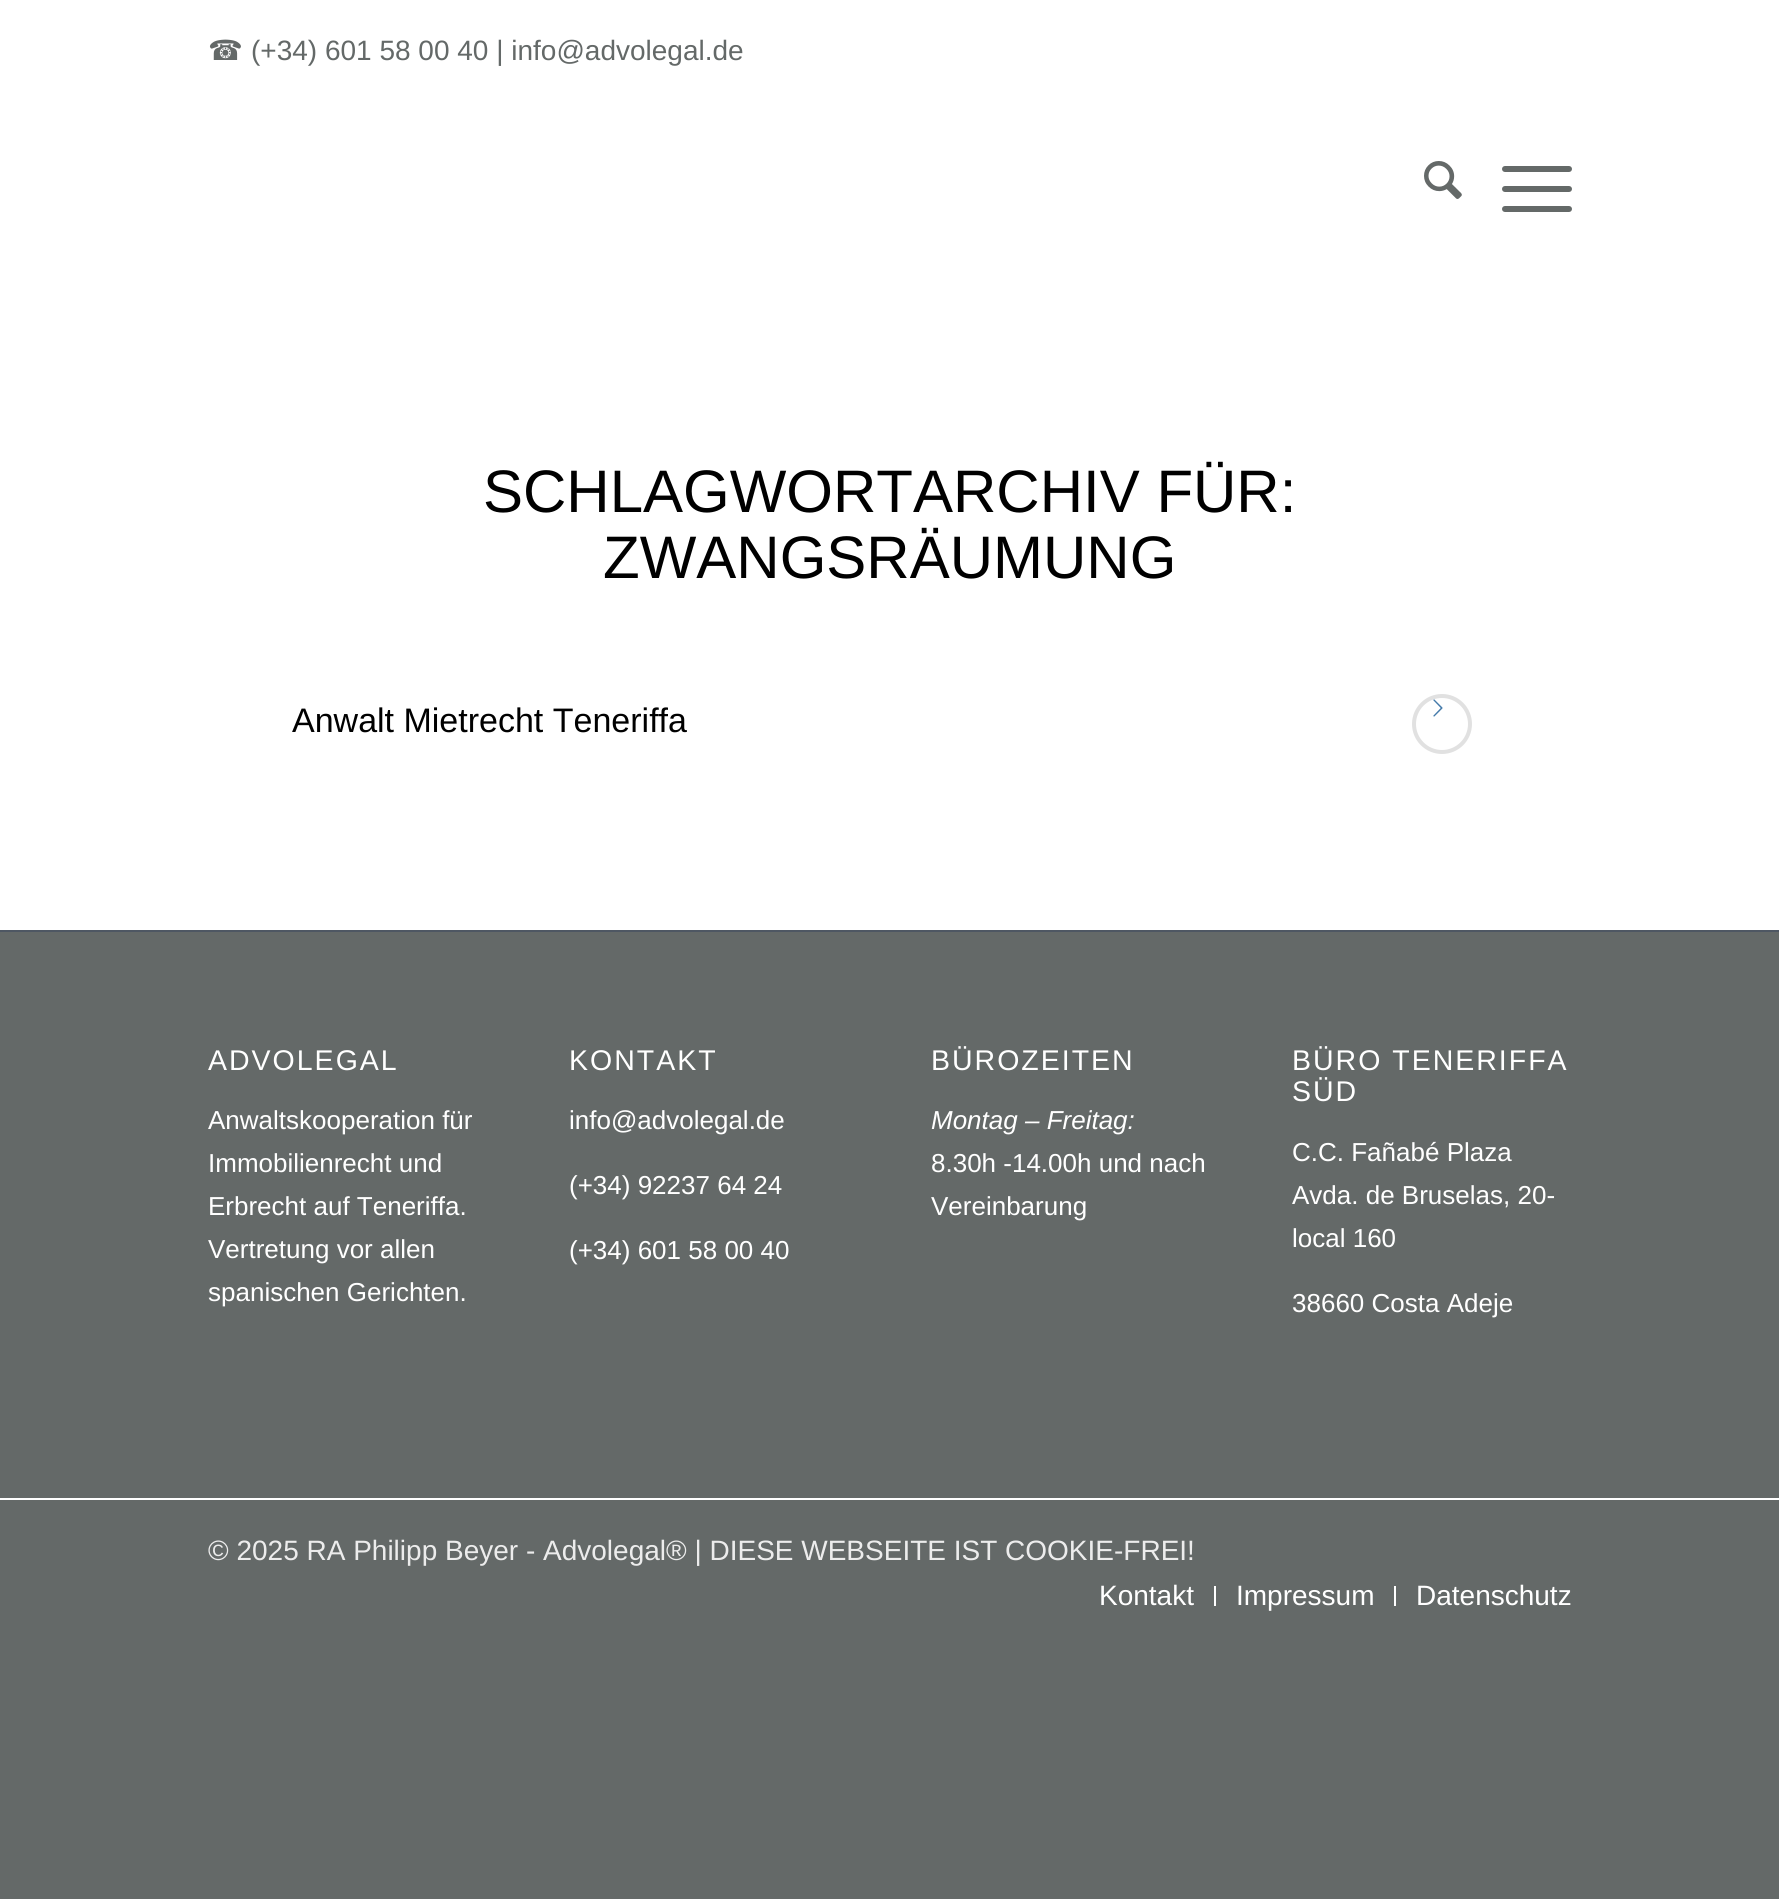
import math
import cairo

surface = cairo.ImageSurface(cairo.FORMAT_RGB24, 1779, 1899)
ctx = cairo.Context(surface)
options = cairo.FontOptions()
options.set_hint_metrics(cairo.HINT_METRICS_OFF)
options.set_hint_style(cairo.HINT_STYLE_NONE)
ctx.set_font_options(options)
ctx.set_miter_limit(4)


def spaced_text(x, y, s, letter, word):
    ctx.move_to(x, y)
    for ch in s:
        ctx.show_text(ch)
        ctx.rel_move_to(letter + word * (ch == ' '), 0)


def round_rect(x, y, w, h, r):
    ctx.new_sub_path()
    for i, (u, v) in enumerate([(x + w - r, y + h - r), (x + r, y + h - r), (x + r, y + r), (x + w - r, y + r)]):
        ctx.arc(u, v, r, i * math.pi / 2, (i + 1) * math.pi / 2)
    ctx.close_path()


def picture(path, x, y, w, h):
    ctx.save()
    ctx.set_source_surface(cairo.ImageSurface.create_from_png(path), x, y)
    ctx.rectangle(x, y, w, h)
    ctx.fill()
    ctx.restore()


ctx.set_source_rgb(0.392, 0.412, 0.408)
ctx.paint()
ctx.set_source_rgb(1, 1, 1)
ctx.rectangle(0, 0, 1779, 930)
ctx.fill()
ctx.select_font_face("DejaVu Sans")
ctx.set_font_size(28)
ctx.set_source_rgb(0.392, 0.412, 0.408)
ctx.move_to(208, 60)
ctx.show_text("☎")
ctx.select_font_face("Liberation Sans")
ctx.move_to(251, 60)
ctx.show_text("(+34) 601 58 00 40 | info@advolegal.de")
picture("img1.png", 1424, 161, 38, 38)
round_rect(1502, 186, 70, 6, 3)
ctx.fill()
round_rect(1502, 166, 70, 6, 3)
ctx.fill()
round_rect(1502, 206, 70, 6, 3)
ctx.fill()
ctx.set_font_size(60)
ctx.set_source_rgb(0, 0, 0)
ctx.move_to(483, 512)
ctx.show_text("SCHLAGWORTARCHIV FÜR:")
ctx.move_to(603, 578)
ctx.show_text("ZWANGSRÄUMUNG")
ctx.set_font_size(34)
ctx.move_to(292, 732)
ctx.show_text("Anwalt Mietrecht Teneriffa")
ctx.new_path()
ctx.arc(1442, 724, 28, 0, 2 * math.pi)
ctx.set_source_rgb(0.882, 0.882, 0.882)
ctx.set_line_width(4)
ctx.stroke()
picture("img2.png", 1433, 699, 10, 18)
ctx.set_source_rgb(0.306, 0.341, 0.388)
ctx.rectangle(0, 930, 1779, 2)
ctx.fill()
ctx.set_font_size(28.5)
ctx.set_source_rgb(1, 1, 1)
spaced_text(208, 1070, "ADVOLEGAL", 2, 0)
ctx.set_font_size(26)
ctx.move_to(208, 1129)
ctx.show_text("Anwaltskooperation für")
ctx.move_to(208, 1172)
ctx.show_text("Immobilienrecht und")
ctx.move_to(208, 1215)
ctx.show_text("Erbrecht auf Teneriffa.")
ctx.move_to(208, 1258)
ctx.show_text("Vertretung vor allen")
ctx.move_to(208, 1301)
ctx.show_text("spanischen Gerichten.")
ctx.set_font_size(28.5)
spaced_text(569, 1070, "KONTAKT", 2, 0)
ctx.set_font_size(26)
ctx.move_to(569, 1129)
ctx.show_text("info@advolegal.de")
ctx.move_to(569, 1194)
ctx.show_text("(+34) 92237 64 24")
ctx.move_to(569, 1259)
ctx.show_text("(+34) 601 58 00 40")
ctx.set_font_size(28.5)
spaced_text(931, 1070, "BÜROZEITEN", 2, 0)
ctx.select_font_face("Liberation Sans", cairo.FONT_SLANT_ITALIC)
ctx.set_font_size(26)
ctx.move_to(931, 1129)
ctx.show_text("Montag – Freitag:")
ctx.select_font_face("Liberation Sans")
ctx.move_to(931, 1172)
ctx.show_text("8.30h -14.00h und nach")
ctx.move_to(931, 1215)
ctx.show_text("Vereinbarung")
ctx.set_font_size(28.5)
spaced_text(1292, 1070, "BÜRO TENERIFFA", 2, 0)
spaced_text(1292, 1101, "SÜD", 2, 0)
ctx.set_font_size(26)
ctx.move_to(1292, 1161)
ctx.show_text("C.C. Fañabé Plaza")
ctx.move_to(1292, 1204)
ctx.show_text("Avda. de Bruselas, 20-")
ctx.move_to(1292, 1247)
ctx.show_text("local 160")
ctx.move_to(1292, 1312)
ctx.show_text("38660 Costa Adeje")
ctx.rectangle(0, 1498, 1779, 2)
ctx.fill()
ctx.set_font_size(28)
ctx.set_source_rgb(0.922, 0.922, 0.922)
ctx.move_to(208, 1560)
ctx.show_text("© 2025 RA Philipp Beyer - Advolegal® | DIESE WEBSEITE IST COOKIE-FREI!")
ctx.set_source_rgb(1, 1, 1)
ctx.move_to(1099, 1605)
ctx.show_text("Kontakt")
ctx.rectangle(1214, 1586, 2, 20)
ctx.fill()
ctx.move_to(1236, 1605)
ctx.show_text("Impressum")
ctx.rectangle(1394, 1586, 2, 20)
ctx.fill()
ctx.move_to(1416, 1605)
ctx.show_text("Datenschutz")
surface.write_to_png("page.png")
